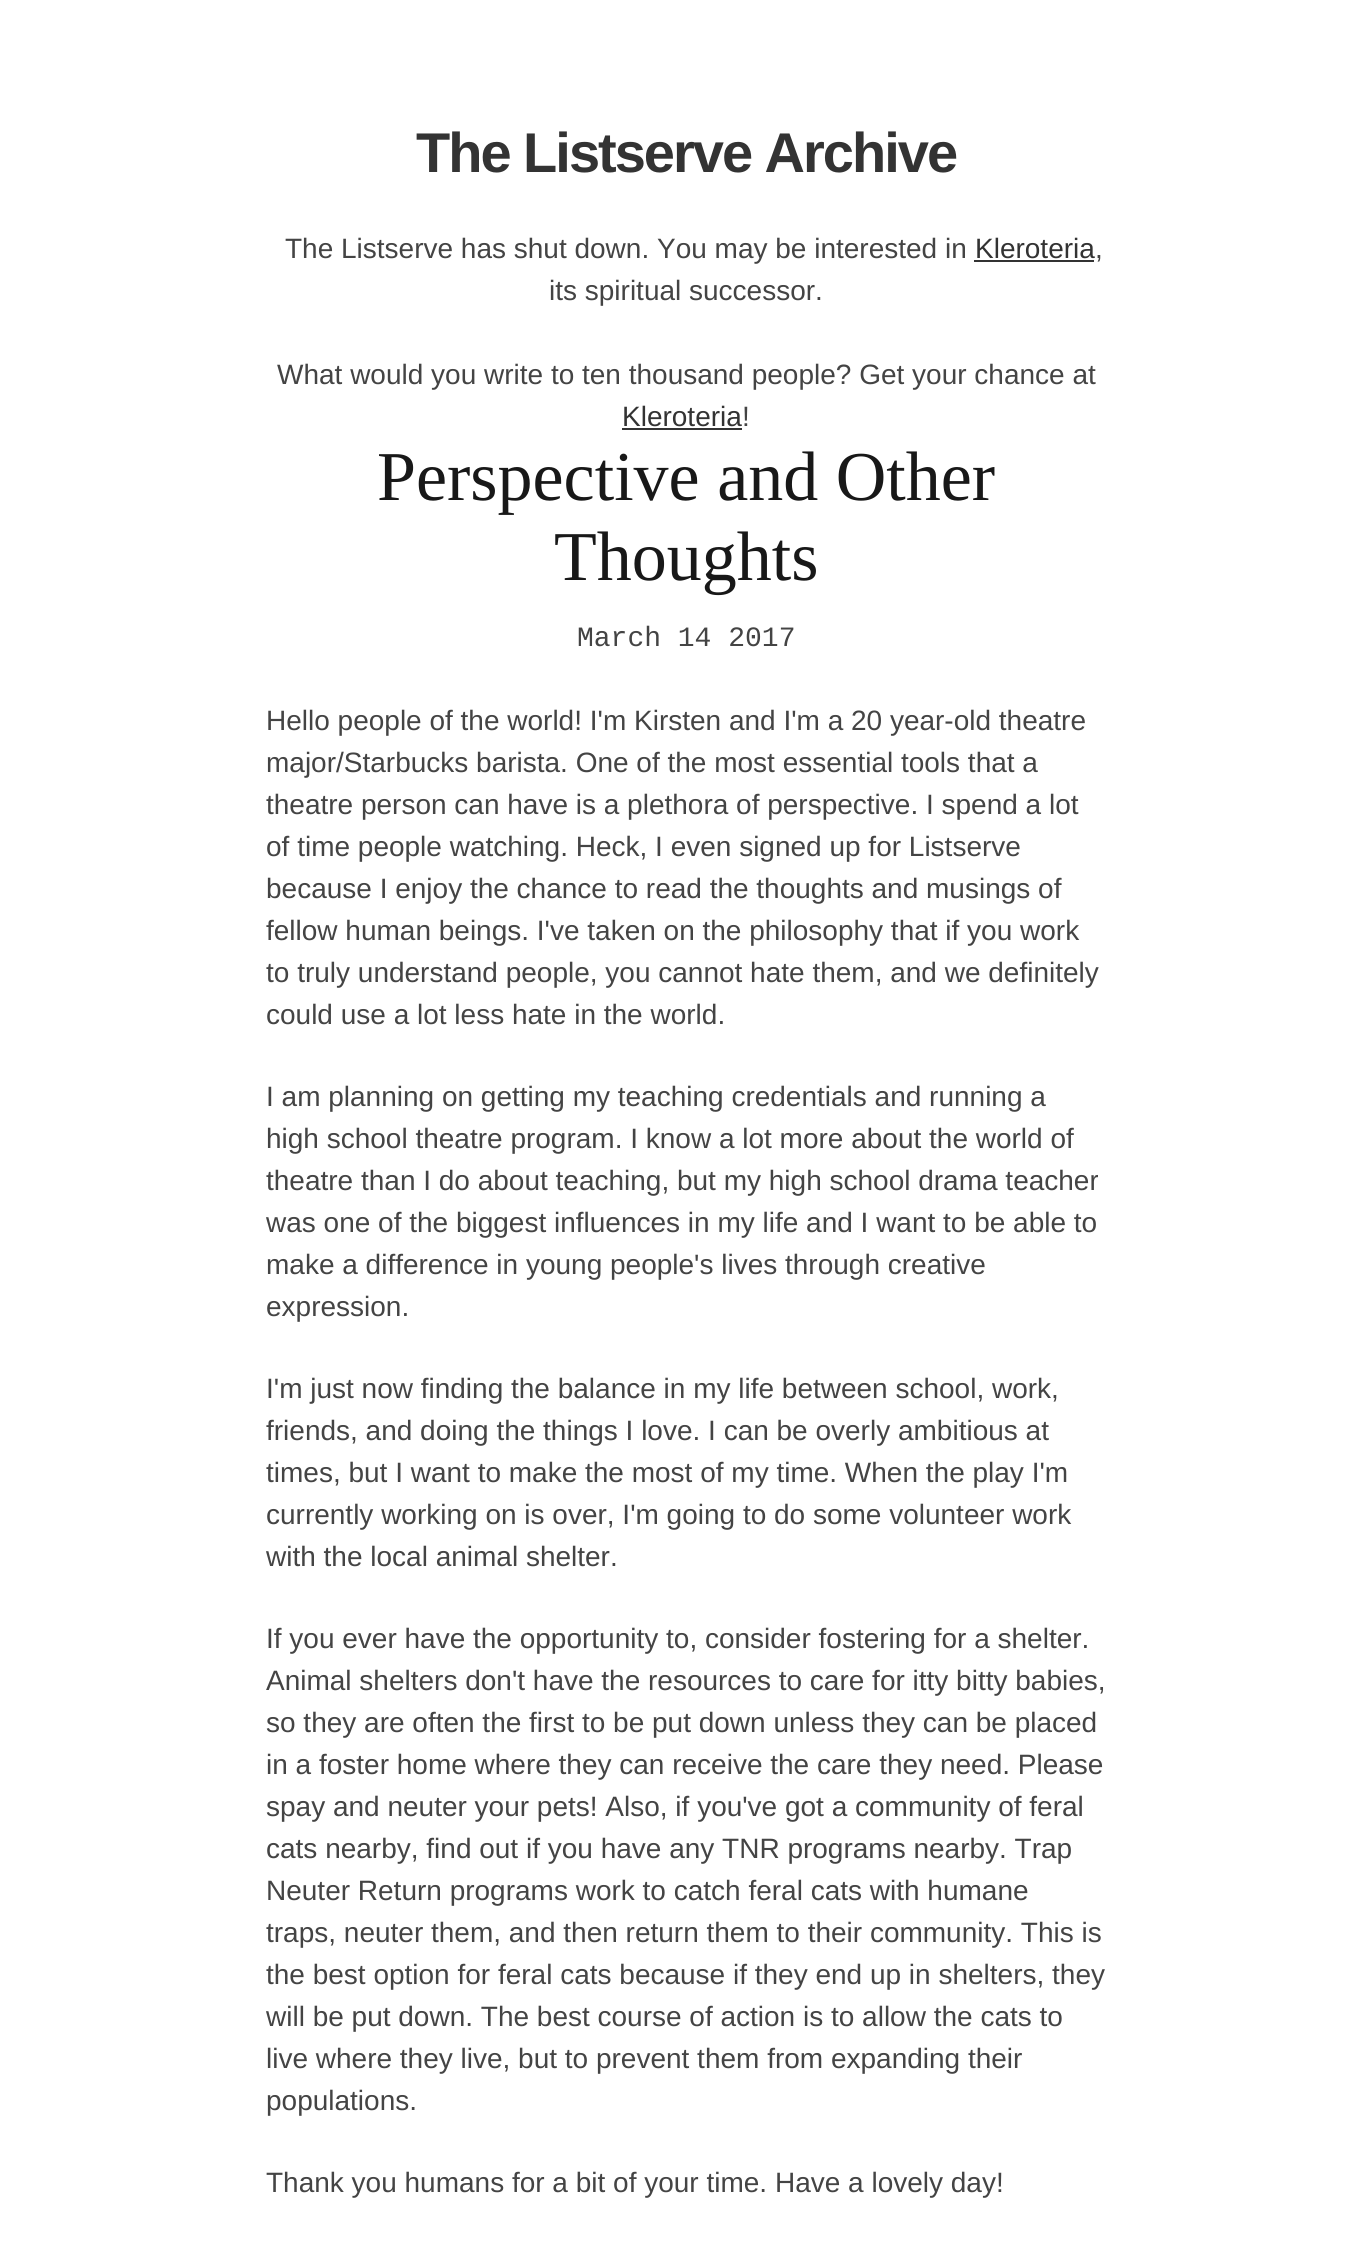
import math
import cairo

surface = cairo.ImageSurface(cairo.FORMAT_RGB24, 1371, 2255)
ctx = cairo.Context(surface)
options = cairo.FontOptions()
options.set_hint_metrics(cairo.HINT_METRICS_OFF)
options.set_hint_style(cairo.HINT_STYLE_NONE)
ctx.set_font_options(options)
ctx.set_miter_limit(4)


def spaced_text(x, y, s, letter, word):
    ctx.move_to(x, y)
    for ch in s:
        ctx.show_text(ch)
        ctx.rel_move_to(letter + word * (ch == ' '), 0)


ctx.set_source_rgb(1, 1, 1)
ctx.paint()
ctx.select_font_face("Liberation Sans", cairo.FONT_SLANT_NORMAL, cairo.FONT_WEIGHT_BOLD)
ctx.set_font_size(56)
ctx.set_source_rgb(0.2, 0.2, 0.2)
spaced_text(416, 172, "The Listserve Archive", -2, 0)
ctx.select_font_face("Liberation Sans")
ctx.set_font_size(28)
ctx.set_source_rgb(0.267, 0.267, 0.267)
ctx.move_to(285, 258)
ctx.show_text("The Listserve has shut down. You may be interested in")
ctx.set_source_rgb(0.2, 0.2, 0.2)
ctx.move_to(975, 258)
ctx.show_text("Kleroteria")
ctx.rectangle(974, 260, 120, 2)
ctx.fill()
ctx.set_source_rgb(0.267, 0.267, 0.267)
ctx.move_to(1095, 258)
ctx.show_text(",")
ctx.move_to(549, 300)
ctx.show_text("its spiritual successor.")
ctx.move_to(277, 384)
ctx.show_text("What would you write to ten thousand people? Get your chance at")
ctx.set_source_rgb(0.2, 0.2, 0.2)
ctx.move_to(622, 426)
ctx.show_text("Kleroteria")
ctx.rectangle(622, 428, 120, 2)
ctx.fill()
ctx.set_source_rgb(0.267, 0.267, 0.267)
ctx.move_to(742, 426)
ctx.show_text("!")
ctx.select_font_face("Liberation Serif")
ctx.set_font_size(70)
ctx.set_source_rgb(0.094, 0.094, 0.094)
ctx.move_to(377, 500)
ctx.show_text("Perspective and Other")
ctx.move_to(554, 580)
ctx.show_text("Thoughts")
ctx.select_font_face("Liberation Mono")
ctx.set_font_size(28)
ctx.set_source_rgb(0.267, 0.267, 0.267)
ctx.move_to(577, 646)
ctx.show_text("March 14 2017")
ctx.select_font_face("Liberation Sans")
ctx.move_to(266, 730)
ctx.show_text("Hello people of the world! I'm Kirsten and I'm a 20 year-old theatre")
ctx.move_to(266, 772)
ctx.show_text("major/Starbucks barista. One of the most essential tools that a")
ctx.move_to(266, 814)
ctx.show_text("theatre person can have is a plethora of perspective. I spend a lot")
ctx.move_to(266, 856)
ctx.show_text("of time people watching. Heck, I even signed up for Listserve")
ctx.move_to(266, 898)
ctx.show_text("because I enjoy the chance to read the thoughts and musings of")
ctx.move_to(266, 940)
ctx.show_text("fellow human beings. I've taken on the philosophy that if you work")
ctx.move_to(266, 982)
ctx.show_text("to truly understand people, you cannot hate them, and we definitely")
ctx.move_to(266, 1024)
ctx.show_text("could use a lot less hate in the world.")
ctx.move_to(266, 1106)
ctx.show_text("I am planning on getting my teaching credentials and running a")
ctx.move_to(266, 1148)
ctx.show_text("high school theatre program. I know a lot more about the world of")
ctx.move_to(266, 1190)
ctx.show_text("theatre than I do about teaching, but my high school drama teacher")
ctx.move_to(266, 1232)
ctx.show_text("was one of the biggest influences in my life and I want to be able to")
ctx.move_to(266, 1274)
ctx.show_text("make a difference in young people's lives through creative")
ctx.move_to(266, 1316)
ctx.show_text("expression.")
ctx.move_to(266, 1398)
ctx.show_text("I'm just now finding the balance in my life between school, work,")
ctx.move_to(266, 1440)
ctx.show_text("friends, and doing the things I love. I can be overly ambitious at")
ctx.move_to(266, 1482)
ctx.show_text("times, but I want to make the most of my time. When the play I'm")
ctx.move_to(266, 1524)
ctx.show_text("currently working on is over, I'm going to do some volunteer work")
ctx.move_to(266, 1566)
ctx.show_text("with the local animal shelter.")
ctx.move_to(266, 1648)
ctx.show_text("If you ever have the opportunity to, consider fostering for a shelter.")
ctx.move_to(266, 1690)
ctx.show_text("Animal shelters don't have the resources to care for itty bitty babies,")
ctx.move_to(266, 1732)
ctx.show_text("so they are often the first to be put down unless they can be placed")
ctx.move_to(266, 1774)
ctx.show_text("in a foster home where they can receive the care they need. Please")
ctx.move_to(266, 1816)
ctx.show_text("spay and neuter your pets! Also, if you've got a community of feral")
ctx.move_to(266, 1858)
ctx.show_text("cats nearby, find out if you have any TNR programs nearby. Trap")
ctx.move_to(266, 1900)
ctx.show_text("Neuter Return programs work to catch feral cats with humane")
ctx.move_to(266, 1942)
ctx.show_text("traps, neuter them, and then return them to their community. This is")
ctx.move_to(266, 1984)
ctx.show_text("the best option for feral cats because if they end up in shelters, they")
ctx.move_to(266, 2026)
ctx.show_text("will be put down. The best course of action is to allow the cats to")
ctx.move_to(266, 2068)
ctx.show_text("live where they live, but to prevent them from expanding their")
ctx.move_to(266, 2110)
ctx.show_text("populations.")
ctx.move_to(266, 2192)
ctx.show_text("Thank you humans for a bit of your time. Have a lovely day!")
surface.write_to_png("page.png")
